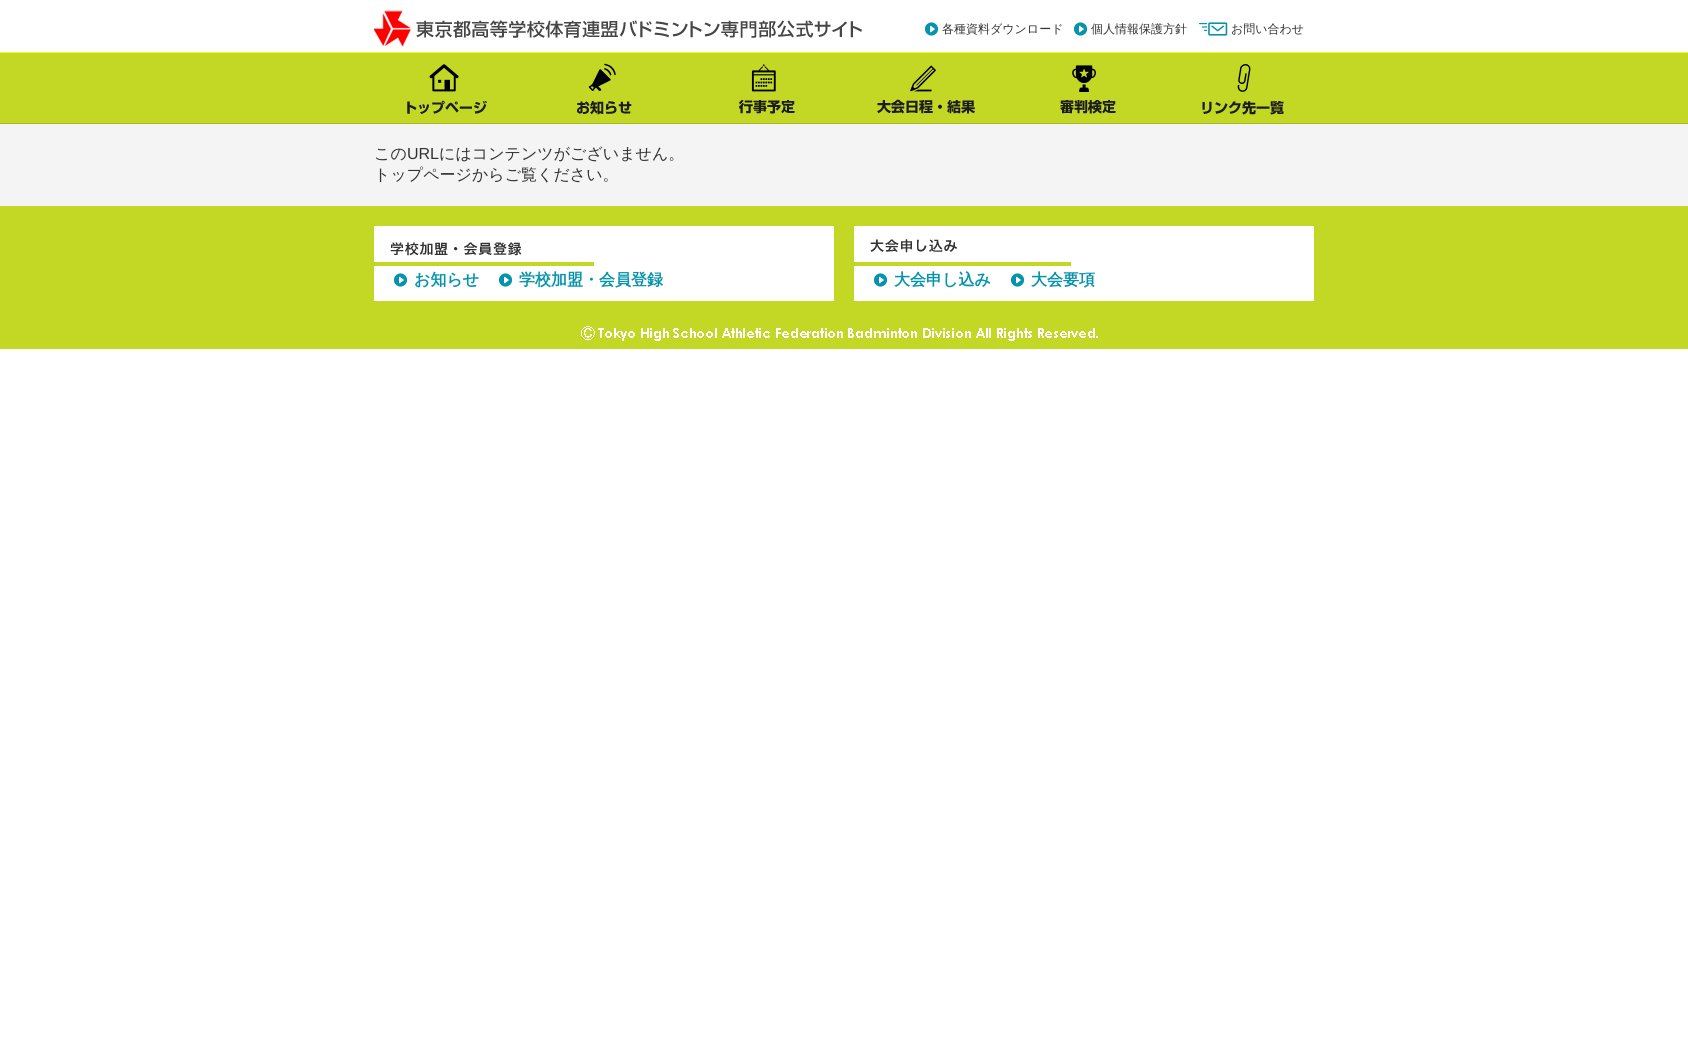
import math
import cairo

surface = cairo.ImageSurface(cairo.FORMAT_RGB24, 1688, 1041)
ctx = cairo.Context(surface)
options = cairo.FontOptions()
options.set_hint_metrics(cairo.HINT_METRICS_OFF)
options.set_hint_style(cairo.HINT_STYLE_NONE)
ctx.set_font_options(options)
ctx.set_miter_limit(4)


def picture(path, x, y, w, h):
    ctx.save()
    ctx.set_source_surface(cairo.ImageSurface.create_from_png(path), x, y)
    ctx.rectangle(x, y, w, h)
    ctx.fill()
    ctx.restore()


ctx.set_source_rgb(1, 1, 1)
ctx.paint()
picture("img1.png", 374, 10, 488, 37)
picture("img2.png", 925, 22, 14, 14)
ctx.select_font_face("WenQuanYi Zen Hei Medium")
ctx.set_font_size(12)
ctx.set_source_rgb(0.2, 0.2, 0.2)
ctx.move_to(942, 33)
ctx.show_text("各種資料ダウンロード")
picture("img2.png", 1074, 22, 14, 14)
ctx.move_to(1091, 33)
ctx.show_text("個人情報保護方針")
picture("img3.png", 1198, 22, 30, 14)
ctx.move_to(1231, 33)
ctx.show_text("お問い合わせ")
ctx.set_source_rgb(0.765, 0.847, 0.145)
ctx.rectangle(0, 53, 1688, 70)
ctx.fill()
ctx.set_source_rgb(0.902, 1, 0.173)
ctx.rectangle(0, 52, 1688, 1)
ctx.fill()
ctx.set_source_rgb(0.651, 0.722, 0.125)
ctx.rectangle(0, 123, 1688, 1)
ctx.fill()
picture("img4.png", 407, 64, 80, 50)
picture("img5.png", 577, 63, 55, 52)
picture("img6.png", 739, 64, 56, 50)
picture("img7.png", 877, 65, 98, 49)
picture("img8.png", 1060, 65, 56, 49)
picture("img9.png", 1202, 64, 82, 51)
ctx.set_source_rgb(0.957, 0.957, 0.957)
ctx.rectangle(0, 124, 1688, 82)
ctx.fill()
ctx.set_font_size(16)
ctx.set_source_rgb(0.2, 0.2, 0.2)
ctx.move_to(374, 159)
ctx.show_text("この")
ctx.select_font_face("Liberation Sans")
ctx.move_to(407, 159)
ctx.show_text("URL")
ctx.select_font_face("WenQuanYi Zen Hei Medium")
ctx.move_to(439, 159)
ctx.show_text("にはコンテンツがございません。")
ctx.move_to(374, 180)
ctx.show_text("トップページからご覧ください。")
ctx.set_source_rgb(0.765, 0.847, 0.145)
ctx.rectangle(0, 206, 1688, 143)
ctx.fill()
ctx.set_source_rgb(1, 1, 1)
ctx.rectangle(374, 226, 460, 75)
ctx.fill()
picture("img10.png", 374, 242, 220, 24)
picture("img2.png", 394, 273, 14, 14)
ctx.select_font_face("WenQuanYi Zen Hei", cairo.FONT_SLANT_NORMAL, cairo.FONT_WEIGHT_BOLD)
ctx.set_source_rgb(0.027, 0.576, 0.671)
ctx.move_to(414, 285)
ctx.show_text("お知らせ")
picture("img2.png", 499, 273, 14, 14)
ctx.move_to(519, 285)
ctx.show_text("学校加盟・会員登録")
ctx.set_source_rgb(1, 1, 1)
ctx.rectangle(854, 226, 460, 75)
ctx.fill()
picture("img11.png", 854, 239, 217, 27)
picture("img2.png", 874, 273, 14, 14)
ctx.set_source_rgb(0.027, 0.576, 0.671)
ctx.move_to(894, 285)
ctx.show_text("大会申し込み")
picture("img2.png", 1011, 273, 14, 14)
ctx.move_to(1031, 285)
ctx.show_text("大会要項")
picture("img12.png", 581, 326, 517, 15)
surface.write_to_png("page.png")
